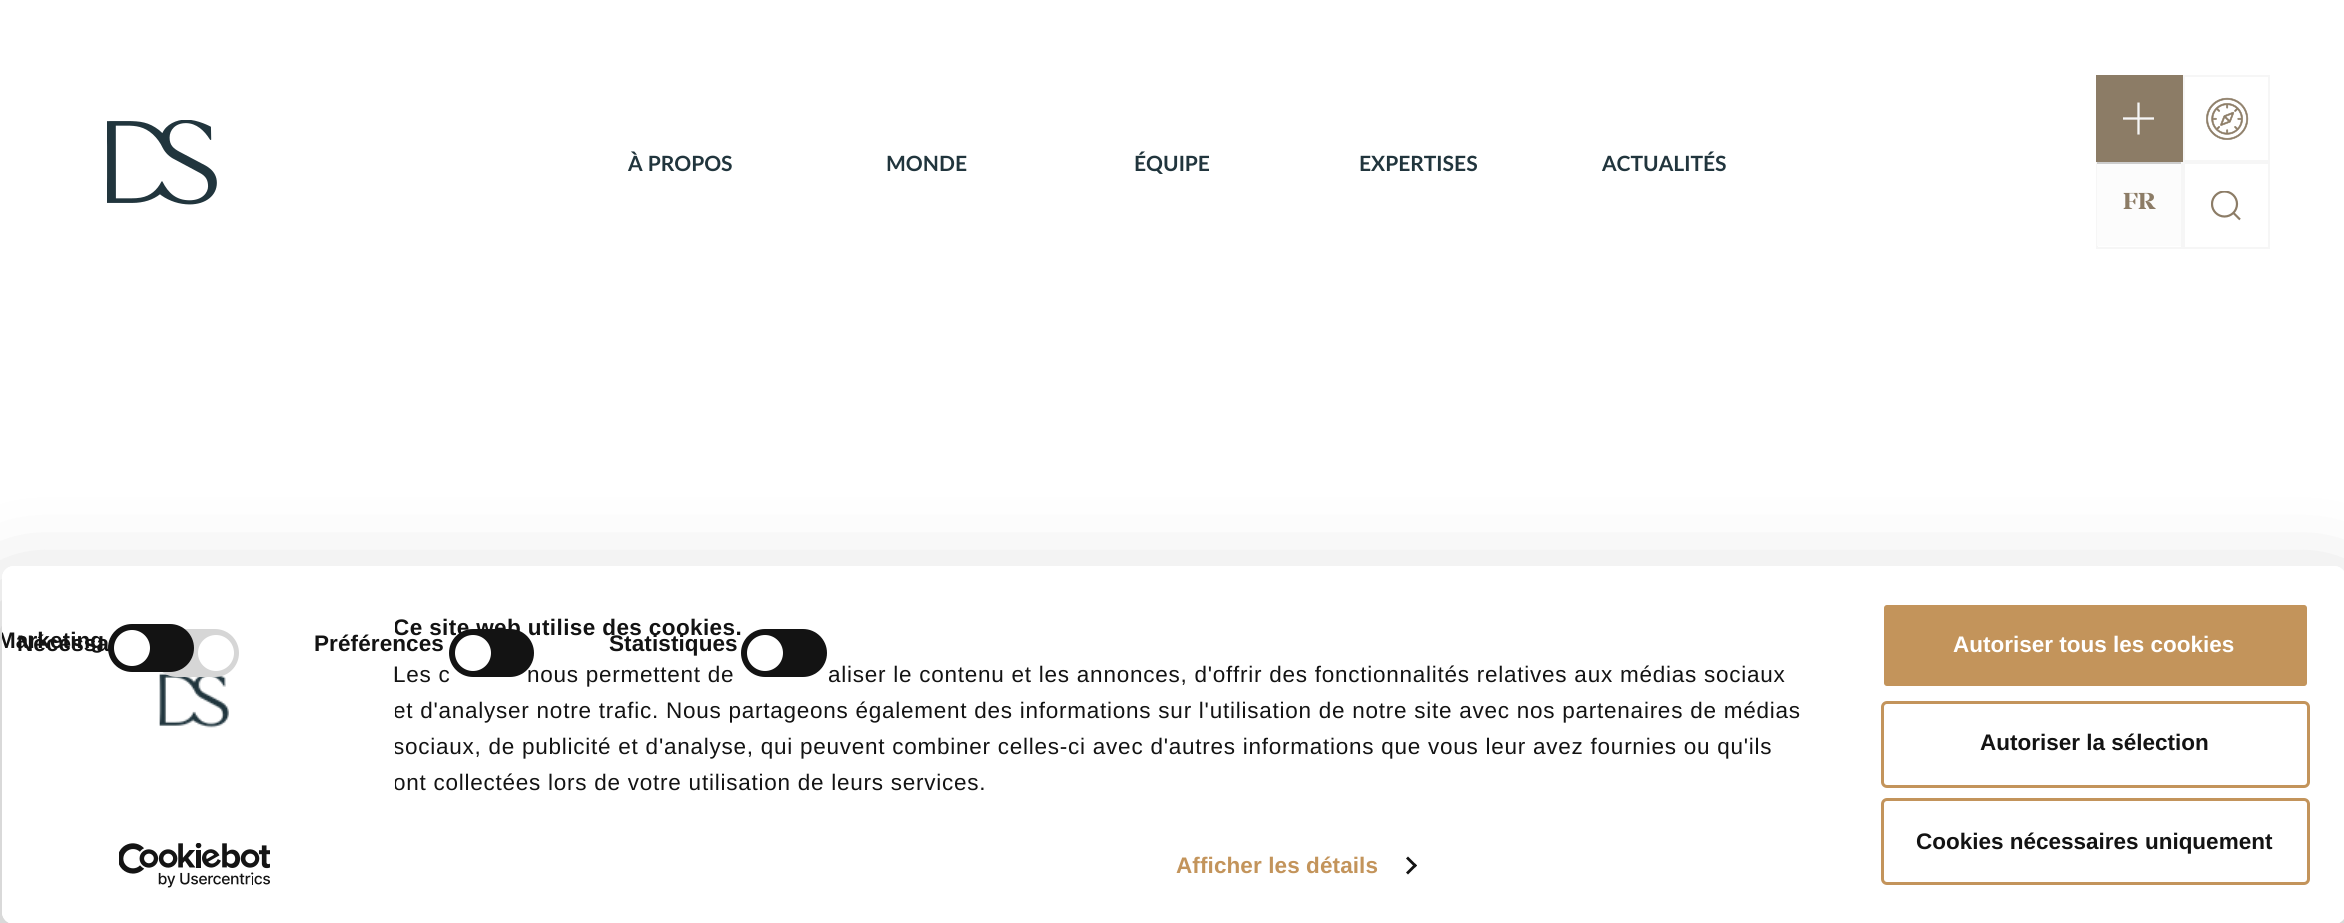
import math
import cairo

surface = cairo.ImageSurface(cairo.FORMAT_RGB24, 2344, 923)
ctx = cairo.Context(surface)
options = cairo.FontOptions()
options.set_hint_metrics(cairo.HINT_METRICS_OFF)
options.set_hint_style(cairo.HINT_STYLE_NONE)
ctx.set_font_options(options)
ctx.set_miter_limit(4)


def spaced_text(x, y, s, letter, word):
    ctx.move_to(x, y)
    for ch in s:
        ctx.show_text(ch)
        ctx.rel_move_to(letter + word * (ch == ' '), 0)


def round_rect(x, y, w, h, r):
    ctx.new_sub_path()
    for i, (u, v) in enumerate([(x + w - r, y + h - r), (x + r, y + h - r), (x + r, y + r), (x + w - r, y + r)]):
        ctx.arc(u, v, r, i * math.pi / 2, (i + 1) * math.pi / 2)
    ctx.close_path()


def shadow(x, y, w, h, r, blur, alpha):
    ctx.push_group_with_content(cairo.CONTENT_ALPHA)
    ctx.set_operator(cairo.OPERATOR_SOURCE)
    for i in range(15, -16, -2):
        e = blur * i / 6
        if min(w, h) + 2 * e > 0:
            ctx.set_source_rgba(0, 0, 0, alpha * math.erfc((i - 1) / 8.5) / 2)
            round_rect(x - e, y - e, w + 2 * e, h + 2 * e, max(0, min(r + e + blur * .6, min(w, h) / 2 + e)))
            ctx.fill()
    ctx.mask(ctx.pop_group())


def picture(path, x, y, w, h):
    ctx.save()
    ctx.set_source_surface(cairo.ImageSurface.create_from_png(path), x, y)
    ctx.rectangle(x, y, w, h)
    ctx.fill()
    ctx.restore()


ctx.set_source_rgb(1, 1, 1)
ctx.paint()
picture("img1.png", 107, 120, 110, 85)
ctx.select_font_face("Lato", cairo.FONT_SLANT_NORMAL, cairo.FONT_WEIGHT_BOLD)
ctx.set_font_size(21)
ctx.set_source_rgb(0.129, 0.208, 0.239)
ctx.move_to(628, 171)
ctx.show_text("À PROPOS")
ctx.move_to(886, 171)
ctx.show_text("MONDE")
ctx.move_to(1134, 171)
ctx.show_text("ÉQUIPE")
ctx.move_to(1359, 171)
ctx.show_text("EXPERTISES")
ctx.move_to(1602, 171)
ctx.show_text("ACTUALITÉS")
ctx.set_source_rgb(0.549, 0.486, 0.4)
ctx.rectangle(2096, 75, 87, 87)
ctx.fill()
ctx.new_path()
ctx.move_to(2138.5, 102.5)
ctx.line_to(2138.5, 134.5)
ctx.set_source_rgb(0.961, 0.961, 0.961)
ctx.set_line_width(2.3)
ctx.set_line_join(cairo.LINE_JOIN_ROUND)
ctx.stroke()
ctx.save()
ctx.rectangle(2123, 102, 33, 33)
ctx.clip()
ctx.new_path()
ctx.move_to(2154, 118.5)
ctx.line_to(2122.5, 118.5)
ctx.stroke()
ctx.restore()
ctx.rectangle(2184, 76, 85, 85)
ctx.set_line_width(2)
ctx.set_line_join(cairo.LINE_JOIN_MITER)
ctx.stroke()
picture("img2.png", 2206, 97, 43, 43)
ctx.rectangle(2097, 163, 85, 85)
ctx.stroke()
ctx.set_source_rgb(0.988, 0.988, 0.988)
ctx.rectangle(2097, 164, 84, 82)
ctx.fill()
ctx.set_source_rgb(0.804, 0.804, 0.804)
ctx.rectangle(2097, 162, 84, 2)
ctx.fill()
ctx.select_font_face("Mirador", cairo.FONT_SLANT_NORMAL, cairo.FONT_WEIGHT_BOLD)
ctx.set_font_size(24)
ctx.set_source_rgb(0.549, 0.486, 0.4)
ctx.move_to(2123, 209)
ctx.show_text("FR")
ctx.rectangle(2184, 163, 85, 85)
ctx.set_source_rgb(0.961, 0.961, 0.961)
ctx.stroke()
ctx.save()
ctx.rectangle(2211, 191, 30, 30)
ctx.clip()
ctx.arc(2224.5, 204, 12.5, 0, 2 * math.pi)
ctx.set_source_rgb(0.549, 0.486, 0.4)
ctx.set_line_width(2.2)
ctx.stroke()
ctx.restore()
ctx.new_path()
ctx.move_to(2233.5, 213)
ctx.line_to(2240, 219.5)
ctx.set_source_rgb(0.549, 0.486, 0.4)
ctx.set_line_width(2.2)
ctx.stroke()
ctx.save()
ctx.set_fill_rule(cairo.FILL_RULE_EVEN_ODD)
ctx.new_path()
ctx.move_to(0, 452)
ctx.line_to(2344, 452)
ctx.line_to(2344, 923)
ctx.line_to(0, 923)
ctx.close_path()
ctx.move_to(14, 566)
ctx.line_to(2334, 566)
ctx.curve_to(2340.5, 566, 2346, 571.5, 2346, 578)
ctx.line_to(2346, 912)
ctx.curve_to(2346, 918.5, 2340.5, 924, 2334, 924)
ctx.line_to(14, 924)
ctx.curve_to(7.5, 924, 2, 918.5, 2, 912)
ctx.line_to(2, 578)
ctx.curve_to(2, 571.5, 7.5, 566, 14, 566)
ctx.close_path()
ctx.clip()
ctx.set_source_rgb(0, 0, 0)
shadow(2, 611, 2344, 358, 12, 52.5, 0.3)
ctx.restore()
ctx.set_source_rgb(1, 1, 1)
round_rect(2, 566, 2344, 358, 12)
ctx.fill()
ctx.save()
ctx.rectangle(395, 611, 1443, 190)
ctx.clip()
ctx.select_font_face("Liberation Sans", cairo.FONT_SLANT_NORMAL, cairo.FONT_WEIGHT_BOLD)
ctx.set_font_size(22.5)
ctx.set_source_rgb(0.078, 0.078, 0.078)
spaced_text(393, 635, "Ce site web utilise des cookies.", 0.4, 0)
ctx.restore()
ctx.select_font_face("Liberation Sans")
ctx.set_font_size(22.5)
ctx.set_source_rgb(0.078, 0.078, 0.078)
spaced_text(393, 682, "Les c", 0.75, 0)
spaced_text(527, 682, "nous permettent de", 0.75, 0)
spaced_text(828, 682, "aliser le contenu et les annonces, d'offrir des fonctionnalités relatives aux médias sociaux", 0.75, 0)
ctx.save()
ctx.rectangle(395, 611, 1443, 190)
ctx.clip()
spaced_text(393, 718, "et d'analyser notre trafic. Nous partageons également des informations sur l'utilisation de notre site avec nos partenaires de médias", 0.75, 0)
spaced_text(393, 754, "sociaux, de publicité et d'analyse, qui peuvent combiner celles-ci avec d'autres informations que vous leur avez fournies ou qu'ils", 0.75, 0)
spaced_text(393, 790, "ont collectées lors de votre utilisation de leurs services.", 0.75, 0)
ctx.restore()
ctx.select_font_face("Liberation Sans", cairo.FONT_SLANT_NORMAL, cairo.FONT_WEIGHT_BOLD)
spaced_text(17, 651, "Nécessa", 0.1, 0)
ctx.save()
round_rect(2, 566, 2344, 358, 12)
ctx.clip()
spaced_text(-3, 648, "Marketing", 0.1, 0)
ctx.restore()
picture("img3.png", 159, 673, 70, 55)
ctx.set_source_rgb(0.839, 0.839, 0.839)
round_rect(153, 629, 86, 48, 24)
ctx.fill()
ctx.set_source_rgb(0.078, 0.078, 0.078)
round_rect(108, 624, 86, 48, 24)
ctx.fill()
ctx.set_source_rgb(1, 1, 1)
ctx.arc(132, 648, 18, 0, 2 * math.pi)
ctx.fill()
ctx.arc(216, 653, 18, 0, 2 * math.pi)
ctx.fill()
ctx.set_source_rgb(0.078, 0.078, 0.078)
spaced_text(314, 651, "Préférences", 0.1, 0)
round_rect(449, 629, 85, 48, 24)
ctx.fill()
ctx.set_source_rgb(1, 1, 1)
ctx.arc(473, 653, 18, 0, 2 * math.pi)
ctx.fill()
ctx.set_source_rgb(0.078, 0.078, 0.078)
spaced_text(609, 651, "Statistiques", 0.1, 0)
round_rect(741, 629, 86, 48, 24)
ctx.fill()
ctx.set_source_rgb(1, 1, 1)
ctx.arc(765, 653, 18, 0, 2 * math.pi)
ctx.fill()
ctx.set_source_rgb(0.765, 0.58, 0.357)
spaced_text(1176, 873, "Afficher les détails", 0.1, 0)
ctx.set_source_rgb(0.078, 0.078, 0.078)
ctx.new_path()
ctx.move_to(1408, 856.5)
ctx.line_to(1417, 865.5)
ctx.line_to(1415, 867.5)
ctx.line_to(1406, 858.5)
ctx.close_path()
ctx.fill()
ctx.new_path()
ctx.move_to(1415, 863.5)
ctx.line_to(1417, 865.5)
ctx.line_to(1408, 874.5)
ctx.line_to(1406, 872.5)
ctx.close_path()
ctx.fill()
ctx.set_source_rgb(0.765, 0.58, 0.357)
round_rect(1882.5, 603.5, 426, 84, 4.5)
ctx.fill_preserve()
ctx.set_source_rgb(1, 1, 1)
ctx.set_line_width(3)
ctx.stroke()
ctx.move_to(1953, 652)
ctx.show_text("Autoriser tous les cookies")
round_rect(1882.5, 702.5, 426, 84, 4.5)
ctx.set_source_rgb(0.765, 0.58, 0.357)
ctx.stroke()
ctx.set_source_rgb(0.078, 0.078, 0.078)
ctx.move_to(1980, 750)
ctx.show_text("Autoriser la sélection")
round_rect(1882.5, 799.5, 426, 84, 4.5)
ctx.set_source_rgb(0.765, 0.58, 0.357)
ctx.stroke()
ctx.set_source_rgb(0.078, 0.078, 0.078)
ctx.move_to(1916, 849)
ctx.show_text("Cookies nécessaires uniquement")
picture("img4.png", 119, 843, 151, 45)
surface.write_to_png("page.png")
